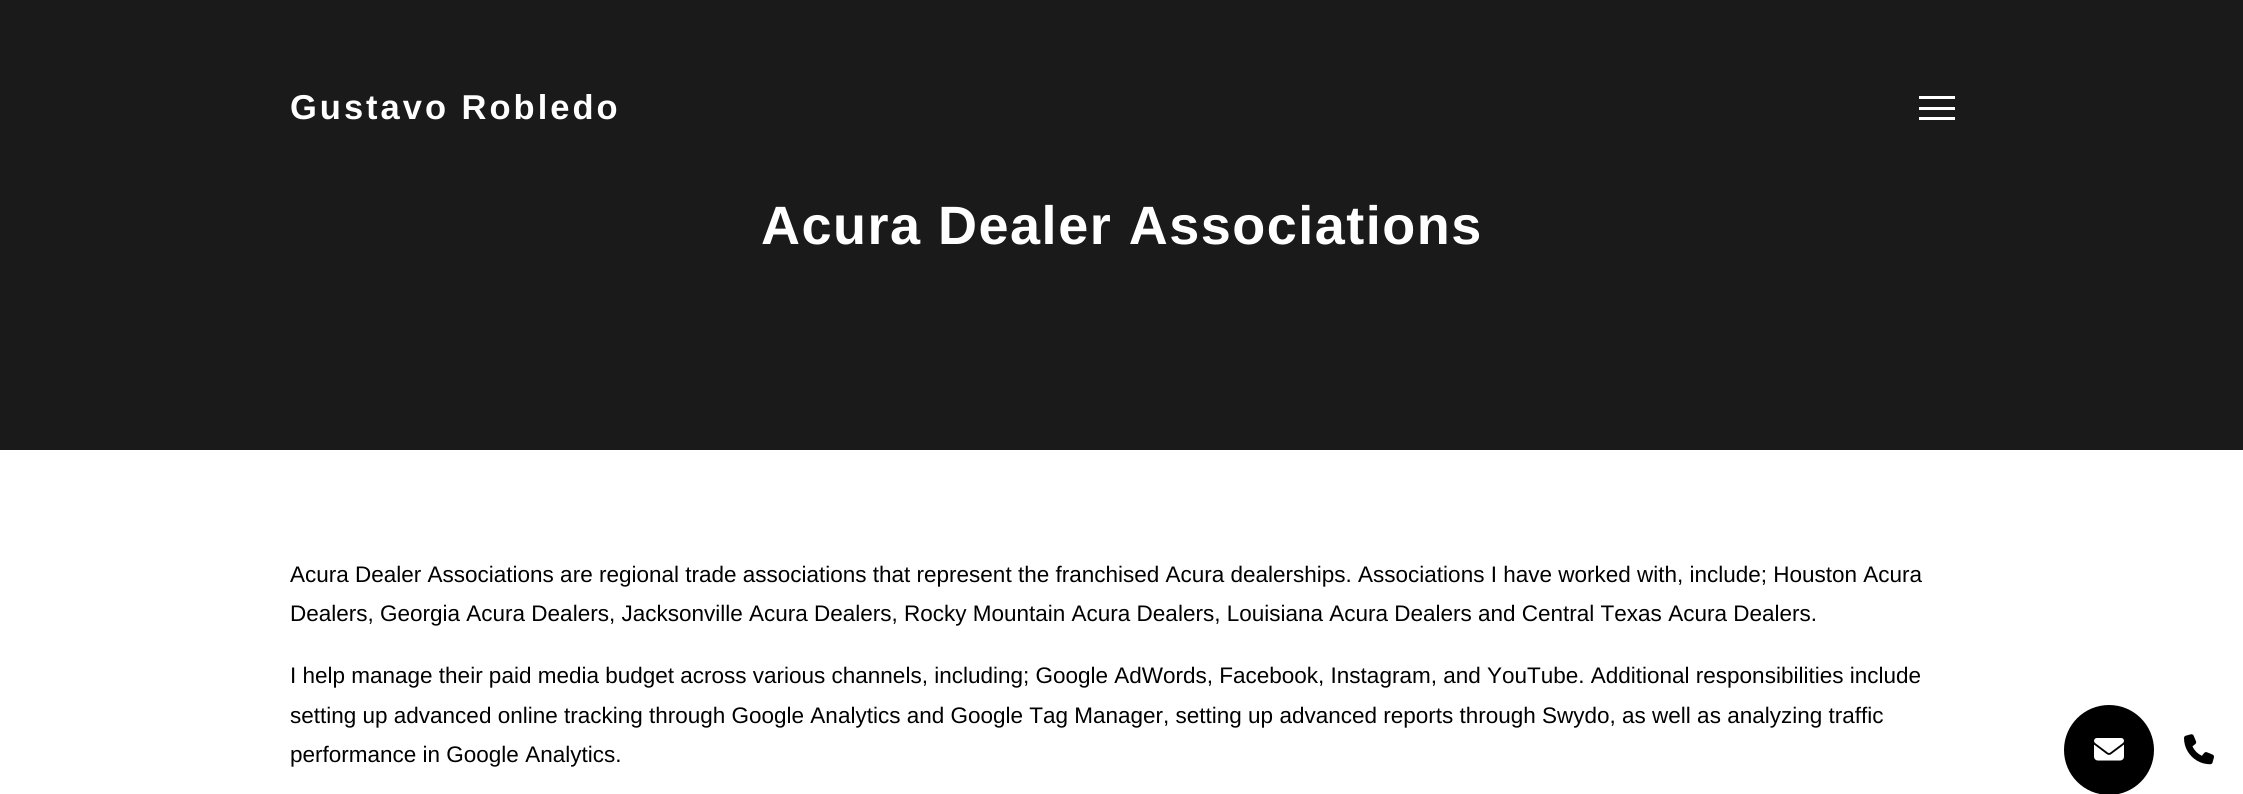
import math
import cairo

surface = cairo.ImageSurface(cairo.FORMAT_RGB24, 2243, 794)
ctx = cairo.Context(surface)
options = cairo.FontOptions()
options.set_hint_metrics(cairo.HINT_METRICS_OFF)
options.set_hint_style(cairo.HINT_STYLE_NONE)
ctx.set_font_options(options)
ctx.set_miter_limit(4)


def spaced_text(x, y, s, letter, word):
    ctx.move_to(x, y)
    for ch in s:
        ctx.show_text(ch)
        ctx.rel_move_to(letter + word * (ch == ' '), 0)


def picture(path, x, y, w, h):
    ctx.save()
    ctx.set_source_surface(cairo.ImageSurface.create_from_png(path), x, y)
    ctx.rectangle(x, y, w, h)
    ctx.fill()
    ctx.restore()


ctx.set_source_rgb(1, 1, 1)
ctx.paint()
ctx.set_source_rgb(0.102, 0.102, 0.102)
ctx.rectangle(0, 0, 2243, 450)
ctx.fill()
ctx.select_font_face("Liberation Sans", cairo.FONT_SLANT_NORMAL, cairo.FONT_WEIGHT_BOLD)
ctx.set_font_size(34.5)
ctx.set_source_rgb(1, 1, 1)
spaced_text(290, 119, "Gustavo Robledo", 3, 0)
ctx.rectangle(1919, 96, 36, 3)
ctx.fill()
ctx.rectangle(1919, 107, 36, 3)
ctx.fill()
ctx.rectangle(1919, 117, 36, 3)
ctx.fill()
ctx.set_font_size(54)
spaced_text(761, 244, "Acura Dealer Associations", 1.5, 0)
ctx.select_font_face("Liberation Sans")
ctx.set_font_size(22.5)
ctx.set_source_rgb(0, 0, 0)
ctx.move_to(290, 582)
ctx.show_text("Acura Dealer Associations are regional trade associations that represent the franchised Acura dealerships. Associations I have worked with, include; Houston Acura")
ctx.move_to(290, 621)
ctx.show_text("Dealers, Georgia Acura Dealers, Jacksonville Acura Dealers, Rocky Mountain Acura Dealers, Louisiana Acura Dealers and Central Texas Acura Dealers.")
ctx.move_to(290, 683)
ctx.show_text("I help manage their paid media budget across various channels, including; Google AdWords, Facebook, Instagram, and YouTube. Additional responsibilities include")
ctx.move_to(290, 723)
ctx.show_text("setting up advanced online tracking through Google Analytics and Google Tag Manager, setting up advanced reports through Swydo, as well as analyzing traffic")
ctx.move_to(290, 762)
ctx.show_text("performance in Google Analytics.")
ctx.new_path()
ctx.arc(2109, 750, 45, 0, 2 * math.pi)
ctx.fill()
picture("img1.png", 2094, 738, 30, 23)
picture("img2.png", 2184, 734, 30, 31)
surface.write_to_png("page.png")
